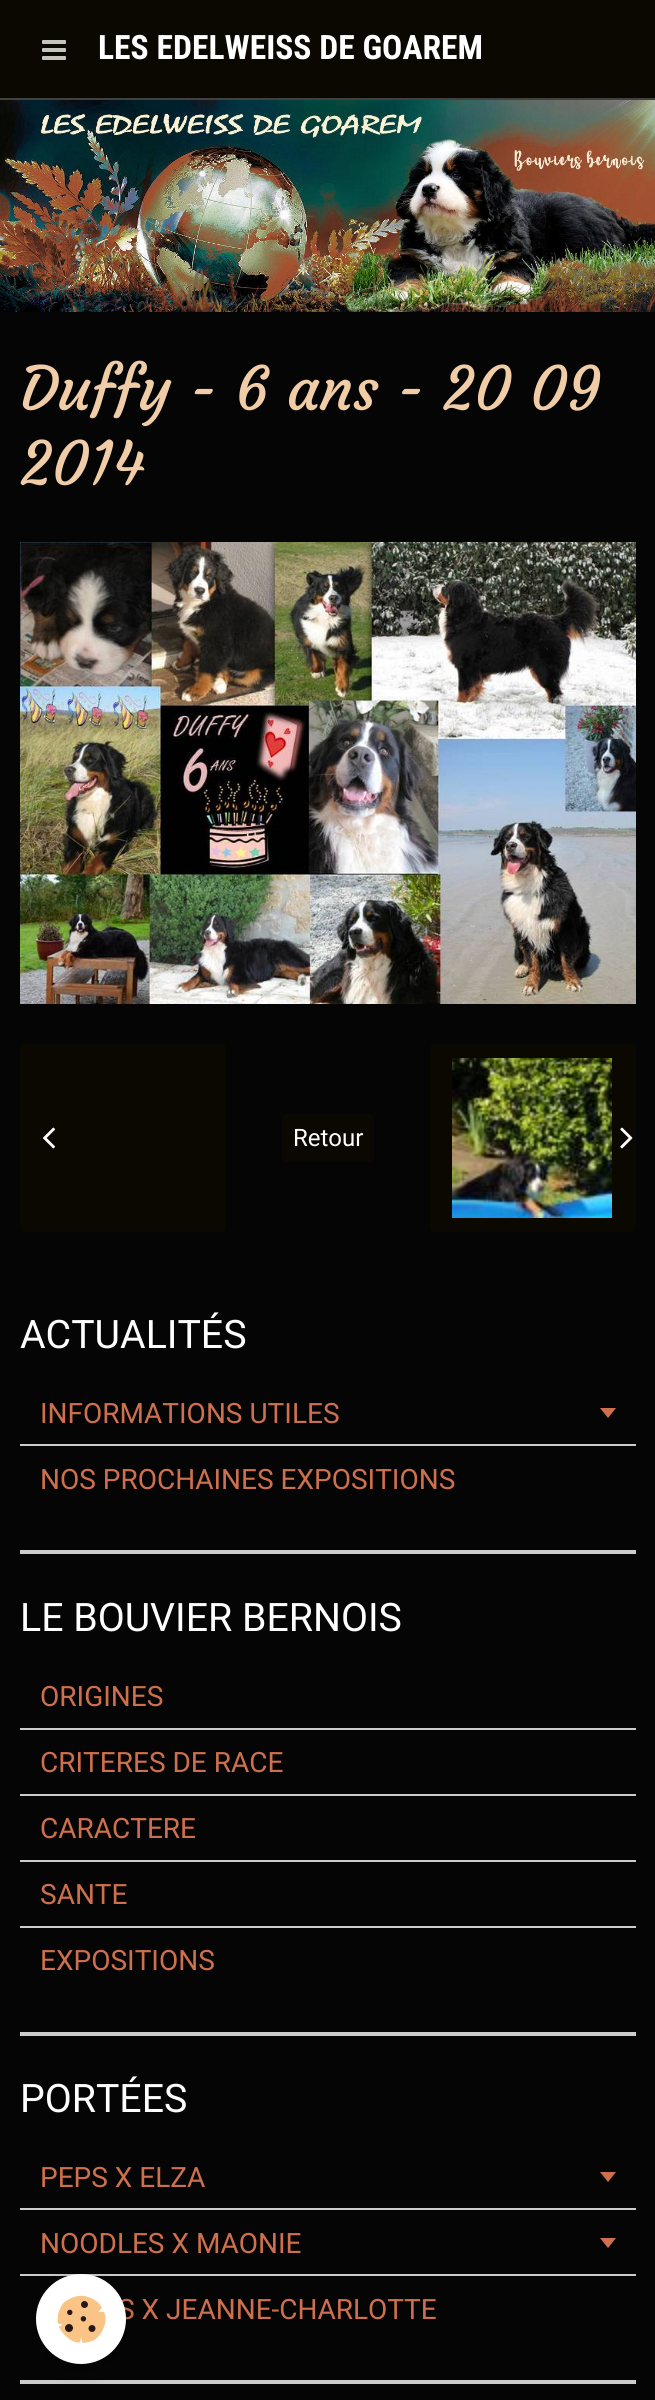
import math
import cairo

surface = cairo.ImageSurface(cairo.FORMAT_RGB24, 655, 2400)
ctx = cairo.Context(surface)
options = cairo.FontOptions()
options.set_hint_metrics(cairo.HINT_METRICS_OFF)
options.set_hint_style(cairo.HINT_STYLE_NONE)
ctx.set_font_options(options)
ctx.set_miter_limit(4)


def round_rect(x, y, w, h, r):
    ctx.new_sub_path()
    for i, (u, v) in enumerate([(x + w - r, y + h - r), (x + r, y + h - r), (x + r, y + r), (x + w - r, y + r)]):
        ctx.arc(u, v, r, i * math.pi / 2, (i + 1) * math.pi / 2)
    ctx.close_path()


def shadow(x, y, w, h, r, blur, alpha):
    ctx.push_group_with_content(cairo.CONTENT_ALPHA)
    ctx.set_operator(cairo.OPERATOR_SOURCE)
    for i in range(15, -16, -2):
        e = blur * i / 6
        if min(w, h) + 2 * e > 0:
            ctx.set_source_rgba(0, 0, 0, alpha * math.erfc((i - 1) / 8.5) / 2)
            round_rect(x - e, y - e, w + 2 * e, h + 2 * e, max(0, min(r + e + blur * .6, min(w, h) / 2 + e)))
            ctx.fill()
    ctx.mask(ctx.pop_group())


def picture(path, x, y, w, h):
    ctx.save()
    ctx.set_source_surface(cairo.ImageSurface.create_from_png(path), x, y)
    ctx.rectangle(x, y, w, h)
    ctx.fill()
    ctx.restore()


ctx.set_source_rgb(0.024, 0.02, 0.02)
ctx.paint()
ctx.set_source_rgb(0.043, 0.035, 0.008)
ctx.rectangle(0, 0, 655, 98)
ctx.fill()
ctx.set_source_rgb(0.255, 0.255, 0.239)
ctx.rectangle(0, 98, 655, 2)
ctx.fill()
picture("img1.png", 42, 40, 24, 20)
ctx.select_font_face("Roboto Condensed", cairo.FONT_SLANT_NORMAL, cairo.FONT_WEIGHT_BOLD)
ctx.set_font_size(33.6)
ctx.set_source_rgb(1, 1, 1)
ctx.move_to(98, 59)
ctx.show_text("LES EDELWEISS DE GOAREM")
picture("img2.png", 0, 100, 655, 212)
ctx.select_font_face("Courgette")
ctx.set_font_size(60)
ctx.set_source_rgb(0.941, 0.804, 0.655)
ctx.move_to(20, 410)
ctx.show_text("Duffy - 6 ans - 20 09")
ctx.move_to(20, 485)
ctx.show_text("2014")
picture("img3.png", 20, 542, 616, 462)
ctx.set_source_rgb(0.043, 0.035, 0.008)
round_rect(20, 1044, 206, 188, 5)
ctx.fill()
picture("img4.png", 43, 1127, 12, 22)
round_rect(282, 1114, 92, 48, 4)
ctx.fill()
ctx.select_font_face("Roboto")
ctx.set_font_size(24)
ctx.set_source_rgb(1, 1, 1)
ctx.move_to(293, 1146)
ctx.show_text("Retour")
ctx.set_source_rgb(0.043, 0.035, 0.008)
round_rect(430, 1044, 206, 188, 5)
ctx.fill()
picture("img5.png", 452, 1058, 160, 160)
picture("img6.png", 620, 1127, 13, 22)
ctx.set_source_rgb(0.8, 0.8, 0.8)
ctx.rectangle(20, 1550, 616, 4)
ctx.fill()
ctx.set_font_size(39.25)
ctx.set_source_rgb(1, 1, 1)
ctx.move_to(20, 1348)
ctx.show_text("ACTUALITÉS")
ctx.set_source_rgb(0.8, 0.8, 0.8)
ctx.rectangle(20, 1444, 616, 2)
ctx.fill()
ctx.set_font_size(28)
ctx.set_source_rgb(0.808, 0.439, 0.302)
ctx.move_to(40, 1423)
ctx.show_text("INFORMATIONS UTILES")
ctx.new_path()
ctx.move_to(600, 1408)
ctx.line_to(616, 1408)
ctx.line_to(608, 1418)
ctx.close_path()
ctx.fill()
ctx.move_to(40, 1489)
ctx.show_text("NOS PROCHAINES EXPOSITIONS")
ctx.set_source_rgb(0.8, 0.8, 0.8)
ctx.rectangle(20, 2032, 616, 4)
ctx.fill()
ctx.set_font_size(39.25)
ctx.set_source_rgb(1, 1, 1)
ctx.move_to(20, 1631)
ctx.show_text("LE BOUVIER BERNOIS")
ctx.set_source_rgb(0.8, 0.8, 0.8)
ctx.rectangle(20, 1728, 616, 2)
ctx.fill()
ctx.set_font_size(28)
ctx.set_source_rgb(0.808, 0.439, 0.302)
ctx.move_to(40, 1706)
ctx.show_text("ORIGINES")
ctx.set_source_rgb(0.8, 0.8, 0.8)
ctx.rectangle(20, 1794, 616, 2)
ctx.fill()
ctx.set_source_rgb(0.808, 0.439, 0.302)
ctx.move_to(40, 1772)
ctx.show_text("CRITERES DE RACE")
ctx.set_source_rgb(0.8, 0.8, 0.8)
ctx.rectangle(20, 1860, 616, 2)
ctx.fill()
ctx.set_source_rgb(0.808, 0.439, 0.302)
ctx.move_to(40, 1838)
ctx.show_text("CARACTERE")
ctx.set_source_rgb(0.8, 0.8, 0.8)
ctx.rectangle(20, 1926, 616, 2)
ctx.fill()
ctx.set_source_rgb(0.808, 0.439, 0.302)
ctx.move_to(40, 1904)
ctx.show_text("SANTE")
ctx.move_to(40, 1970)
ctx.show_text("EXPOSITIONS")
ctx.set_source_rgb(0.8, 0.8, 0.8)
ctx.rectangle(20, 2380, 616, 4)
ctx.fill()
ctx.set_font_size(39.25)
ctx.set_source_rgb(1, 1, 1)
ctx.move_to(20, 2112)
ctx.show_text("PORTÉES")
ctx.set_source_rgb(0.8, 0.8, 0.8)
ctx.rectangle(20, 2208, 616, 2)
ctx.fill()
ctx.set_font_size(28)
ctx.set_source_rgb(0.808, 0.439, 0.302)
ctx.move_to(40, 2187)
ctx.show_text("PEPS X ELZA")
ctx.new_path()
ctx.move_to(600, 2172)
ctx.line_to(616, 2172)
ctx.line_to(608, 2182)
ctx.close_path()
ctx.fill()
ctx.set_source_rgb(0.8, 0.8, 0.8)
ctx.rectangle(20, 2274, 616, 2)
ctx.fill()
ctx.set_source_rgb(0.808, 0.439, 0.302)
ctx.move_to(40, 2253)
ctx.show_text("NOODLES X MAONIE")
ctx.new_path()
ctx.move_to(600, 2238)
ctx.line_to(616, 2238)
ctx.line_to(608, 2248)
ctx.close_path()
ctx.fill()
ctx.move_to(118, 2319)
ctx.show_text("S X JEANNE-CHARLOTTE")
ctx.set_source_rgb(0, 0, 0)
shadow(36, 2280, 90, 90, 45, 10, 0.24)
ctx.set_source_rgb(1, 1, 1)
ctx.arc(81, 2319, 45, 0, 2 * math.pi)
ctx.fill()
picture("img7.png", 57, 2295, 49, 48)
surface.write_to_png("page.png")
